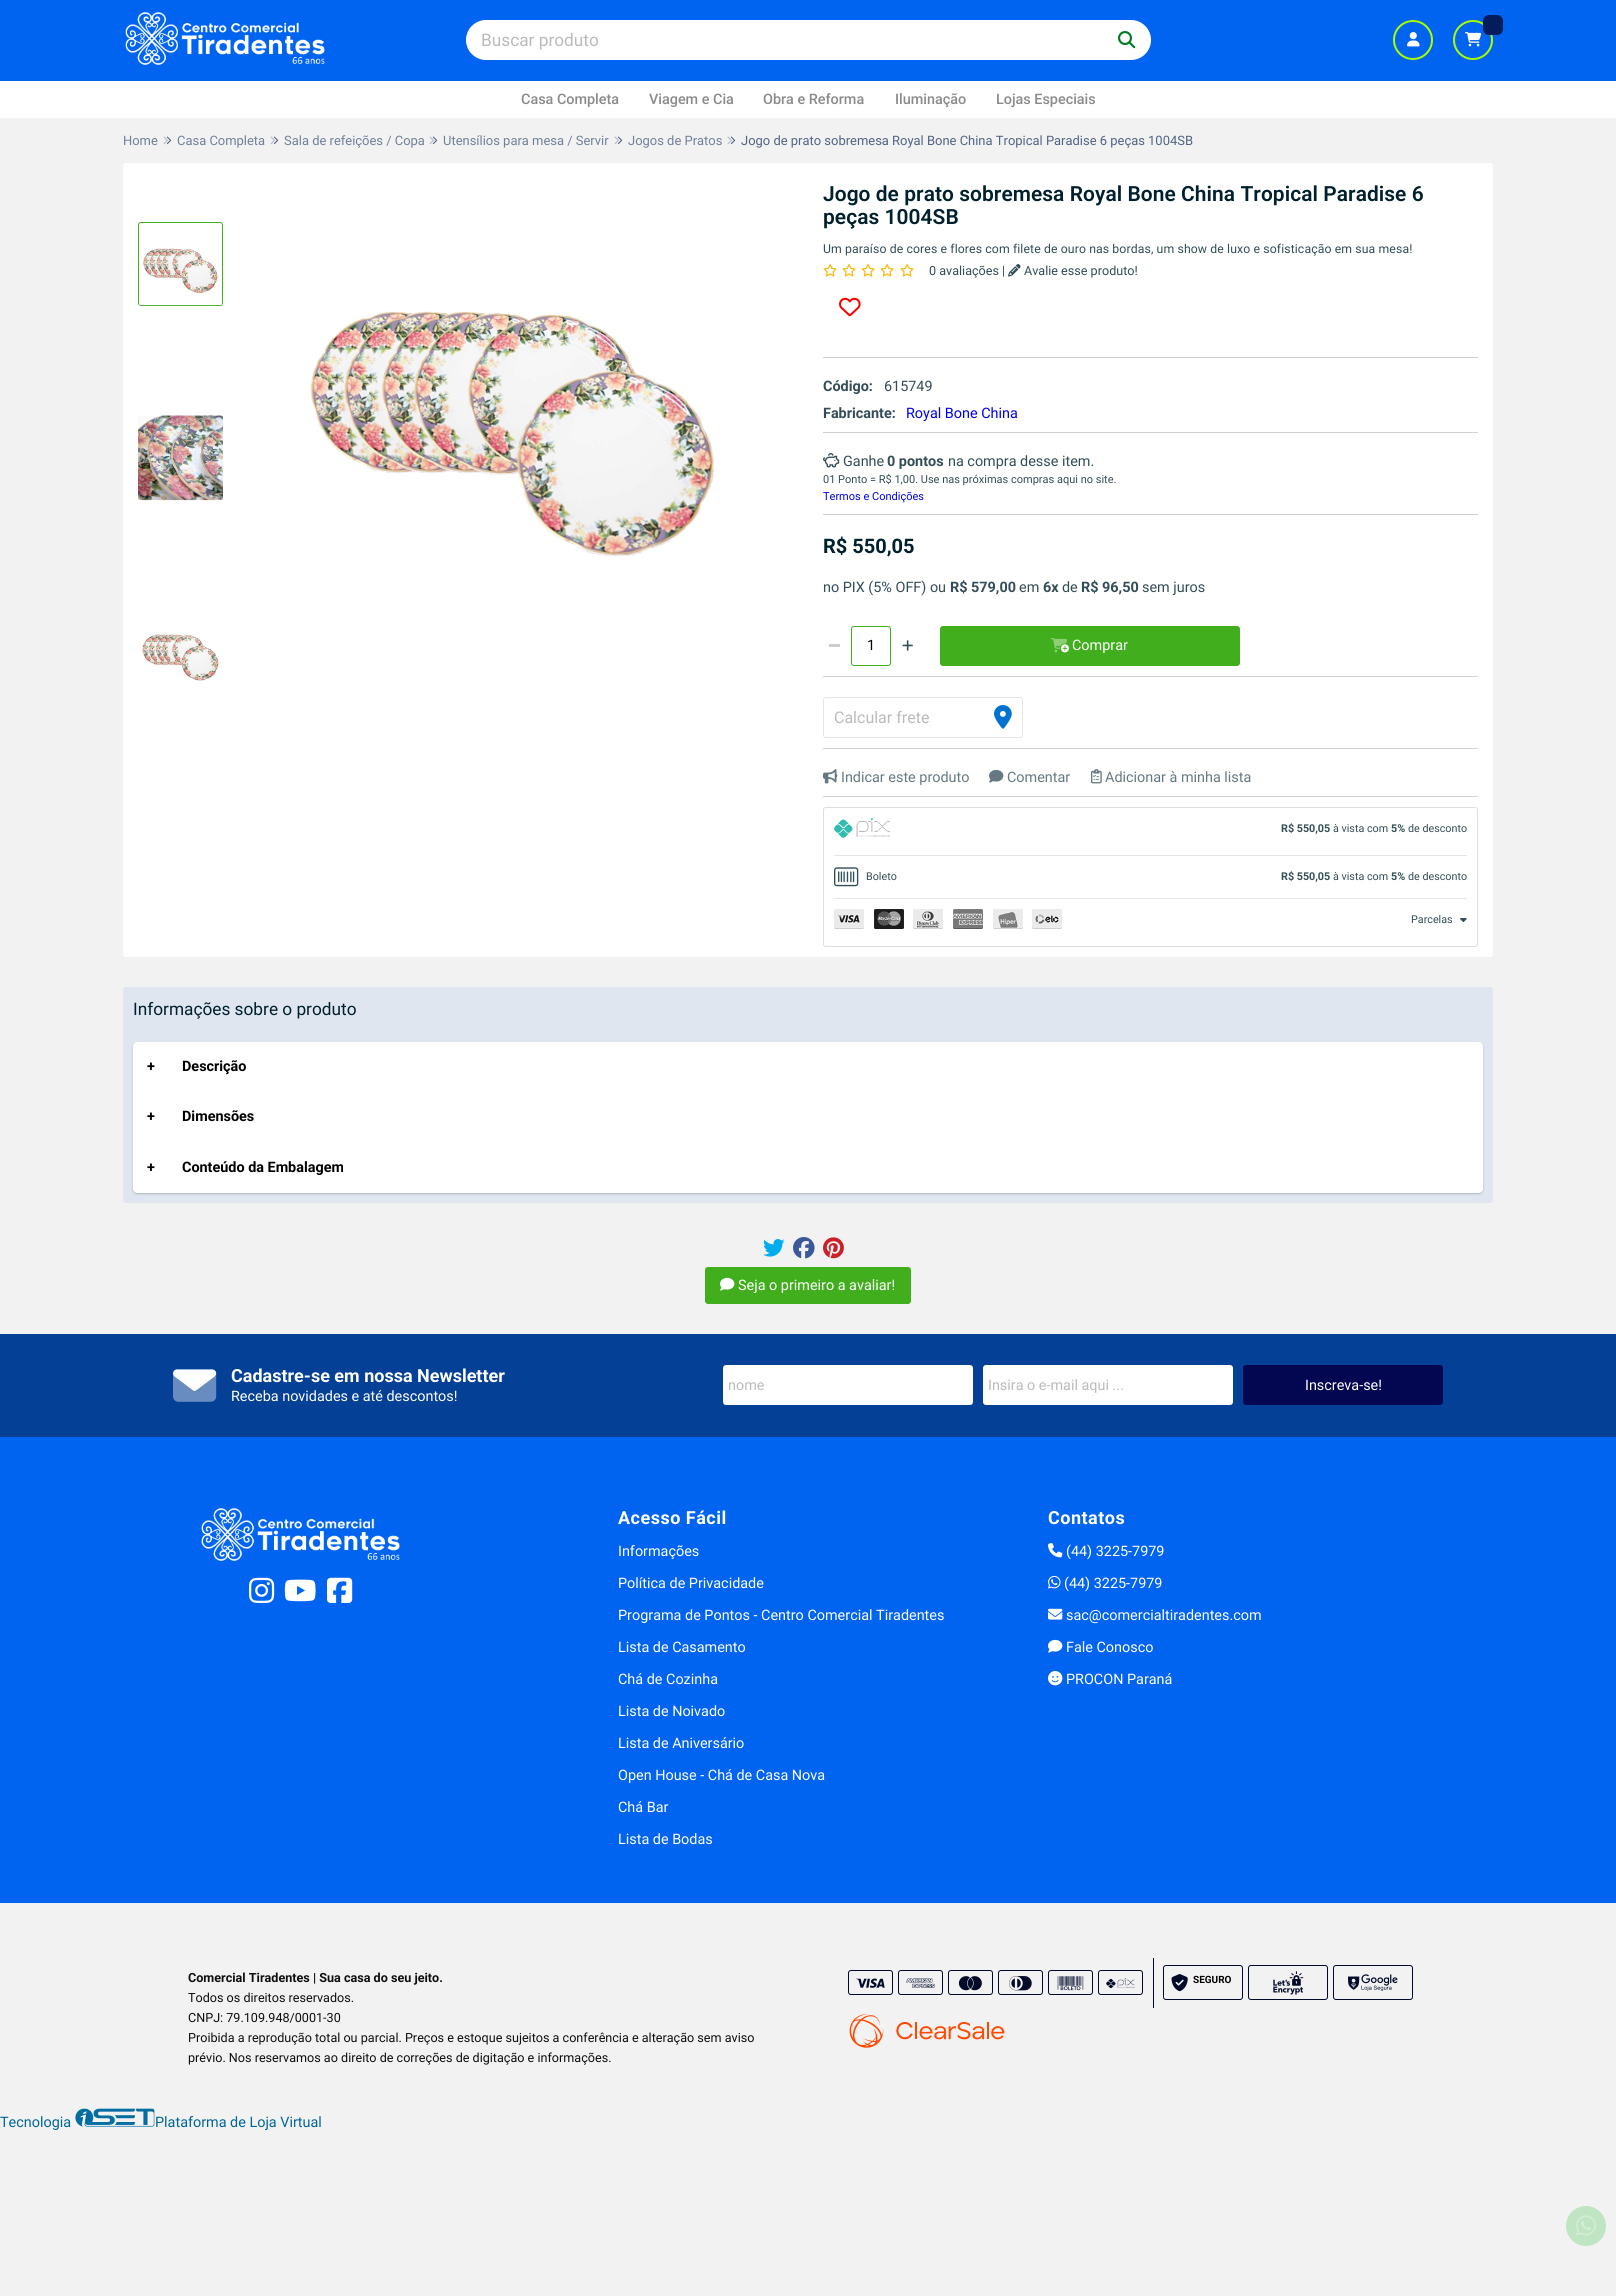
import math
import cairo

surface = cairo.ImageSurface(cairo.FORMAT_RGB24, 1616, 2296)
ctx = cairo.Context(surface)
options = cairo.FontOptions()
options.set_hint_metrics(cairo.HINT_METRICS_OFF)
options.set_hint_style(cairo.HINT_STYLE_NONE)
ctx.set_font_options(options)
ctx.set_miter_limit(4)


def spaced_text(x, y, s, letter, word):
    ctx.move_to(x, y)
    for ch in s:
        ctx.show_text(ch)
        ctx.rel_move_to(letter + word * (ch == ' '), 0)


def round_rect(x, y, w, h, r):
    ctx.new_sub_path()
    for i, (u, v) in enumerate([(x + w - r, y + h - r), (x + r, y + h - r), (x + r, y + r), (x + w - r, y + r)]):
        ctx.arc(u, v, r, i * math.pi / 2, (i + 1) * math.pi / 2)
    ctx.close_path()


def shadow(x, y, w, h, r, blur, alpha):
    ctx.push_group_with_content(cairo.CONTENT_ALPHA)
    ctx.set_operator(cairo.OPERATOR_SOURCE)
    for i in range(15, -16, -2):
        e = blur * i / 6
        if min(w, h) + 2 * e > 0:
            ctx.set_source_rgba(0, 0, 0, alpha * math.erfc((i - 1) / 8.5) / 2)
            round_rect(x - e, y - e, w + 2 * e, h + 2 * e, max(0, min(r + e + blur * .6, min(w, h) / 2 + e)))
            ctx.fill()
    ctx.mask(ctx.pop_group())


def picture(path, x, y, w, h):
    ctx.save()
    ctx.set_source_surface(cairo.ImageSurface.create_from_png(path), x, y)
    ctx.rectangle(x, y, w, h)
    ctx.fill()
    ctx.restore()


ctx.set_source_rgb(0.949, 0.949, 0.949)
ctx.paint()
ctx.set_source_rgb(0, 0.392, 0.945)
ctx.rectangle(0, 0, 1616, 81)
ctx.fill()
picture("img1.png", 125, 12, 200, 53)
ctx.set_source_rgb(1, 1, 1)
round_rect(466, 20, 685, 40, 20)
ctx.fill()
ctx.select_font_face("Roboto")
ctx.set_font_size(17.25)
ctx.set_source_rgb(0.729, 0.729, 0.729)
ctx.move_to(481, 46)
ctx.show_text("Buscar produto")
picture("img2.png", 1118, 31, 18, 18)
ctx.arc(1413, 40, 19, 0, 2 * math.pi)
ctx.set_source_rgb(0.663, 1, 0)
ctx.stroke()
picture("img3.png", 1407, 32, 13, 15)
ctx.arc(1473, 40, 19, 0, 2 * math.pi)
ctx.stroke()
ctx.set_source_rgb(0.012, 0.11, 0.357)
round_rect(1483, 15, 20, 20, 6)
ctx.fill()
picture("img4.png", 1465, 32, 16, 15)
ctx.set_source_rgb(1, 1, 1)
ctx.rectangle(0, 81, 1616, 37)
ctx.fill()
ctx.select_font_face("Roboto Medium")
ctx.set_font_size(14.4)
ctx.set_source_rgb(0.541, 0.541, 0.541)
ctx.move_to(521, 104)
ctx.show_text("Casa Completa")
ctx.move_to(649, 104)
ctx.show_text("Viagem e Cia")
ctx.move_to(763, 104)
ctx.show_text("Obra e Reforma")
ctx.move_to(895, 104)
ctx.show_text("Iluminação")
ctx.move_to(996, 104)
ctx.show_text("Lojas Especiais")
ctx.select_font_face("Roboto")
ctx.set_font_size(12.95)
ctx.set_source_rgb(0.443, 0.502, 0.604)
ctx.move_to(123, 145)
ctx.show_text("Home")
picture("img5.png", 163, 136, 9, 9)
ctx.move_to(177, 145)
ctx.show_text("Casa Completa")
picture("img5.png", 270, 136, 9, 9)
ctx.move_to(284, 145)
ctx.show_text("Sala de refeições / Copa")
picture("img5.png", 429, 136, 9, 9)
ctx.move_to(443, 145)
ctx.show_text("Utensílios para mesa / Servir")
picture("img5.png", 614, 136, 9, 9)
ctx.move_to(628, 145)
ctx.show_text("Jogos de Pratos")
picture("img5.png", 727, 136, 9, 9)
ctx.set_source_rgb(0.318, 0.392, 0.518)
ctx.move_to(741, 145)
ctx.show_text("Jogo de prato sobremesa Royal Bone China Tropical Paradise 6 peças 1004SB")
ctx.set_source_rgb(1, 1, 1)
round_rect(123, 163, 1370, 794, 3)
ctx.fill()
round_rect(138.5, 222.5, 84, 83, 2.5)
ctx.set_source_rgb(0.255, 0.682, 0.114)
ctx.set_line_width(1)
ctx.stroke()
picture("img6.png", 139, 223, 83, 83)
picture("img7.png", 138, 415, 85, 86)
picture("img8.png", 142, 634, 77, 47)
picture("img9.png", 310, 311, 404, 246)
ctx.set_source_rgb(0.8, 0.824, 0.835)
ctx.rectangle(823, 357, 655, 1)
ctx.fill()
ctx.select_font_face("Roboto SemiBold")
ctx.set_font_size(20.9)
ctx.set_source_rgb(0, 0.125, 0.18)
spaced_text(823, 201, "Jogo de prato sobremesa Royal Bone China Tropical Paradise 6", 0.08, 0)
spaced_text(823, 224, "peças 1004SB", 0.08, 0)
ctx.select_font_face("Roboto")
ctx.set_font_size(12.25)
ctx.set_source_rgb(0.2, 0.302, 0.345)
spaced_text(823, 253, "Um paraíso de cores e flores com filete de ouro nas bordas, um show de luxo e sofisticação em sua mesa!", 0.11, 0)
picture("img10.png", 823, 264, 14, 13)
picture("img10.png", 842, 264, 14, 13)
picture("img10.png", 861, 264, 14, 13)
picture("img10.png", 880, 264, 14, 13)
picture("img10.png", 900, 264, 14, 13)
ctx.set_font_size(12.6)
ctx.move_to(929, 275)
ctx.show_text("0 avaliações |")
picture("img11.png", 1008, 264, 13, 13)
ctx.move_to(1024, 275)
ctx.show_text("Avalie esse produto!")
picture("img12.png", 839, 297, 22, 20)
ctx.set_source_rgb(0.8, 0.824, 0.835)
ctx.rectangle(823, 432, 655, 1)
ctx.fill()
ctx.select_font_face("Roboto", cairo.FONT_SLANT_NORMAL, cairo.FONT_WEIGHT_BOLD)
ctx.set_font_size(14.4)
ctx.set_source_rgb(0.2, 0.302, 0.345)
ctx.move_to(823, 391)
ctx.show_text("Código:")
ctx.select_font_face("Roboto")
ctx.move_to(884, 391)
ctx.show_text("615749")
ctx.select_font_face("Roboto", cairo.FONT_SLANT_NORMAL, cairo.FONT_WEIGHT_BOLD)
ctx.move_to(823, 418)
ctx.show_text("Fabricante:")
ctx.select_font_face("Roboto")
ctx.set_source_rgb(0, 0, 0.933)
ctx.move_to(906, 418)
ctx.show_text("Royal Bone China")
ctx.set_source_rgb(0.8, 0.824, 0.835)
ctx.rectangle(823, 514, 655, 1)
ctx.fill()
picture("img13.png", 823, 453, 17, 15)
ctx.set_source_rgb(0.2, 0.302, 0.345)
ctx.move_to(843, 466)
ctx.show_text("Ganhe")
ctx.select_font_face("Roboto", cairo.FONT_SLANT_NORMAL, cairo.FONT_WEIGHT_BOLD)
ctx.move_to(887, 466)
ctx.show_text("0 pontos")
ctx.select_font_face("Roboto")
ctx.move_to(948, 466)
ctx.show_text("na compra desse item.")
ctx.set_font_size(11)
ctx.move_to(823, 483)
ctx.show_text("01 Ponto = R$ 1,00. Use nas próximas compras aqui no site.")
ctx.set_source_rgb(0, 0, 0.933)
ctx.move_to(823, 500)
ctx.show_text("Termos e Condições")
ctx.select_font_face("Roboto", cairo.FONT_SLANT_NORMAL, cairo.FONT_WEIGHT_BOLD)
ctx.set_font_size(20)
ctx.set_source_rgb(0, 0.125, 0.18)
ctx.move_to(823, 553)
ctx.show_text("R$ 550,05")
ctx.select_font_face("Roboto")
ctx.set_font_size(14.4)
ctx.set_source_rgb(0.2, 0.302, 0.345)
ctx.move_to(823, 592)
ctx.show_text("no PIX (5% OFF) ou")
ctx.select_font_face("Roboto", cairo.FONT_SLANT_NORMAL, cairo.FONT_WEIGHT_BOLD)
ctx.move_to(950, 592)
ctx.show_text("R$ 579,00")
ctx.select_font_face("Roboto")
ctx.move_to(1019, 592)
ctx.show_text("em")
ctx.select_font_face("Roboto", cairo.FONT_SLANT_NORMAL, cairo.FONT_WEIGHT_BOLD)
ctx.move_to(1043, 592)
ctx.show_text("6x")
ctx.select_font_face("Roboto")
ctx.move_to(1062, 592)
ctx.show_text("de")
ctx.select_font_face("Roboto", cairo.FONT_SLANT_NORMAL, cairo.FONT_WEIGHT_BOLD)
ctx.move_to(1081, 592)
ctx.show_text("R$ 96,50")
ctx.select_font_face("Roboto")
ctx.move_to(1142, 592)
ctx.show_text("sem juros")
ctx.set_source_rgb(0.8, 0.824, 0.835)
ctx.rectangle(823, 676, 655, 1)
ctx.fill()
ctx.set_source_rgb(0.8, 0.8, 0.8)
ctx.rectangle(829, 644, 11, 3)
ctx.fill()
round_rect(851.5, 626.5, 39, 39, 2.5)
ctx.set_source_rgb(0.255, 0.682, 0.114)
ctx.stroke()
ctx.set_source_rgb(0, 0, 0)
ctx.move_to(867, 650)
ctx.show_text("1")
picture("img14.png", 902, 640, 11, 11)
ctx.set_source_rgb(0.255, 0.682, 0.114)
round_rect(940, 626, 300, 40, 3)
ctx.fill()
picture("img15.png", 1051, 638, 18, 15)
ctx.set_source_rgb(1, 1, 1)
ctx.move_to(1072, 650)
ctx.show_text("Comprar")
ctx.set_source_rgb(0.8, 0.824, 0.835)
ctx.rectangle(823, 748, 655, 1)
ctx.fill()
round_rect(823.5, 697.5, 199, 40, 2.5)
ctx.set_source_rgb(0.898, 0.898, 0.898)
ctx.stroke()
ctx.set_font_size(16)
ctx.set_source_rgb(0.729, 0.729, 0.729)
ctx.move_to(834, 723)
ctx.show_text("Calcular frete")
picture("img16.png", 994, 705, 18, 24)
ctx.set_source_rgb(0.8, 0.824, 0.835)
ctx.rectangle(823, 796, 655, 1)
ctx.fill()
picture("img17.png", 823, 769, 15, 15)
ctx.set_font_size(14.4)
ctx.set_source_rgb(0.4, 0.475, 0.51)
ctx.move_to(841, 782)
ctx.show_text("Indicar este produto")
picture("img18.png", 989, 769, 15, 14)
ctx.move_to(1007, 782)
ctx.show_text("Comentar")
picture("img19.png", 1091, 769, 11, 15)
ctx.move_to(1105, 782)
ctx.show_text("Adicionar à minha lista")
round_rect(823.5, 807.5, 654, 139, 2.5)
ctx.set_source_rgb(0.871, 0.871, 0.871)
ctx.stroke()
picture("img20.png", 834, 818, 56, 20)
ctx.select_font_face("Roboto", cairo.FONT_SLANT_NORMAL, cairo.FONT_WEIGHT_BOLD)
ctx.set_font_size(10.75)
ctx.set_source_rgb(0.2, 0.302, 0.345)
ctx.move_to(1281, 832)
ctx.show_text("R$ 550,05")
ctx.select_font_face("Roboto")
ctx.move_to(1333, 832)
ctx.show_text("à vista com")
ctx.select_font_face("Roboto", cairo.FONT_SLANT_NORMAL, cairo.FONT_WEIGHT_BOLD)
ctx.move_to(1391, 832)
ctx.show_text("5%")
ctx.select_font_face("Roboto")
ctx.move_to(1408, 832)
ctx.show_text("de desconto")
ctx.set_source_rgb(0.898, 0.898, 0.898)
ctx.rectangle(834, 855, 633, 1)
ctx.fill()
picture("img21.png", 834, 867, 25, 20)
ctx.set_source_rgb(0.2, 0.302, 0.345)
ctx.move_to(866, 880)
ctx.show_text("Boleto")
ctx.select_font_face("Roboto", cairo.FONT_SLANT_NORMAL, cairo.FONT_WEIGHT_BOLD)
ctx.move_to(1281, 880)
ctx.show_text("R$ 550,05")
ctx.select_font_face("Roboto")
ctx.move_to(1333, 880)
ctx.show_text("à vista com")
ctx.select_font_face("Roboto", cairo.FONT_SLANT_NORMAL, cairo.FONT_WEIGHT_BOLD)
ctx.move_to(1391, 880)
ctx.show_text("5%")
ctx.select_font_face("Roboto")
ctx.move_to(1408, 880)
ctx.show_text("de desconto")
ctx.set_source_rgb(0.898, 0.898, 0.898)
ctx.rectangle(834, 898, 633, 1)
ctx.fill()
picture("img22.png", 834, 909, 30, 20)
picture("img23.png", 874, 909, 30, 20)
picture("img24.png", 913, 909, 30, 20)
picture("img25.png", 953, 909, 30, 20)
picture("img26.png", 993, 909, 30, 20)
picture("img27.png", 1032, 909, 30, 20)
ctx.set_source_rgb(0.2, 0.302, 0.345)
ctx.move_to(1411, 923)
ctx.show_text("Parcelas")
picture("img28.png", 1460, 918, 7, 4)
ctx.set_source_rgb(0.878, 0.902, 0.941)
round_rect(123, 987, 1370, 216, 3)
ctx.fill()
ctx.set_font_size(17.25)
ctx.set_source_rgb(0, 0.125, 0.18)
ctx.move_to(133, 1015)
ctx.show_text("Informações sobre o produto")
ctx.set_source_rgb(0, 0, 0)
shadow(133, 1043, 1350, 151, 4, 1, 0.2)
ctx.set_source_rgb(1, 1, 1)
ctx.new_path()
ctx.move_to(137, 1042)
ctx.line_to(1479, 1042)
ctx.curve_to(1481, 1042, 1483, 1044, 1483, 1046)
ctx.line_to(1483, 1092)
ctx.line_to(133, 1092)
ctx.line_to(133, 1046)
ctx.curve_to(133, 1044, 135, 1042, 137, 1042)
ctx.close_path()
ctx.fill()
ctx.select_font_face("Roboto", cairo.FONT_SLANT_NORMAL, cairo.FONT_WEIGHT_BOLD)
ctx.set_font_size(14.4)
ctx.set_source_rgb(0, 0, 0)
ctx.move_to(147, 1071)
ctx.show_text("+")
ctx.move_to(182, 1071)
ctx.show_text("Descrição")
ctx.set_source_rgb(1, 1, 1)
ctx.rectangle(133, 1092, 1350, 50)
ctx.fill()
ctx.set_source_rgb(0, 0, 0)
ctx.move_to(147, 1121)
ctx.show_text("+")
ctx.move_to(182, 1121)
ctx.show_text("Dimensões")
ctx.set_source_rgb(1, 1, 1)
ctx.new_path()
ctx.move_to(133, 1142)
ctx.line_to(1483, 1142)
ctx.line_to(1483, 1189)
ctx.curve_to(1483, 1191, 1481, 1193, 1479, 1193)
ctx.line_to(137, 1193)
ctx.curve_to(135, 1193, 133, 1191, 133, 1189)
ctx.close_path()
ctx.fill()
ctx.set_source_rgb(0, 0, 0)
ctx.move_to(147, 1172)
ctx.show_text("+")
ctx.move_to(182, 1172)
ctx.show_text("Conteúdo da Embalagem")
picture("img29.png", 763, 1239, 22, 18)
picture("img30.png", 793, 1237, 22, 22)
picture("img31.png", 823, 1237, 21, 22)
ctx.set_source_rgb(0.255, 0.682, 0.114)
round_rect(705, 1267, 206, 37, 3)
ctx.fill()
picture("img32.png", 720, 1277, 15, 14)
ctx.select_font_face("Roboto")
ctx.set_source_rgb(1, 1, 1)
ctx.move_to(738, 1290)
ctx.show_text("Seja o primeiro a avaliar!")
ctx.set_source_rgb(0.016, 0.251, 0.588)
ctx.rectangle(0, 1334, 1616, 103)
ctx.fill()
picture("img33.png", 173, 1369, 44, 33)
ctx.select_font_face("Roboto", cairo.FONT_SLANT_NORMAL, cairo.FONT_WEIGHT_BOLD)
ctx.set_font_size(18)
ctx.set_source_rgb(1, 1, 1)
ctx.move_to(231, 1382)
ctx.show_text("Cadastre-se em nossa Newsletter")
ctx.select_font_face("Roboto")
ctx.set_font_size(14.4)
ctx.move_to(231, 1401)
ctx.show_text("Receba novidades e até descontos!")
round_rect(723, 1365, 250, 40, 3)
ctx.fill()
ctx.set_source_rgb(0.729, 0.729, 0.729)
ctx.move_to(728, 1390)
ctx.show_text("nome")
ctx.set_source_rgb(1, 1, 1)
round_rect(983, 1365, 250, 40, 3)
ctx.fill()
ctx.set_source_rgb(0.729, 0.729, 0.729)
ctx.move_to(988, 1390)
ctx.show_text("Insira o e-mail aqui ...")
ctx.set_source_rgb(0.012, 0.024, 0.318)
round_rect(1243, 1365, 200, 40, 3)
ctx.fill()
ctx.set_source_rgb(1, 1, 1)
ctx.move_to(1305, 1390)
ctx.show_text("Inscreva-se!")
ctx.set_source_rgb(0, 0.392, 0.945)
ctx.rectangle(0, 1437, 1616, 466)
ctx.fill()
picture("img34.png", 201, 1508, 199, 53)
picture("img35.png", 249, 1577, 26, 26)
picture("img36.png", 284, 1579, 32, 23)
picture("img37.png", 327, 1577, 26, 26)
ctx.select_font_face("Roboto", cairo.FONT_SLANT_NORMAL, cairo.FONT_WEIGHT_BOLD)
ctx.set_font_size(18)
ctx.set_source_rgb(1, 1, 1)
spaced_text(618, 1524, "Acesso Fácil", 0.5, 0)
ctx.select_font_face("Roboto")
ctx.set_font_size(14.4)
ctx.move_to(618, 1556)
ctx.show_text("Informações")
ctx.move_to(618, 1588)
ctx.show_text("Política de Privacidade")
ctx.move_to(618, 1620)
ctx.show_text("Programa de Pontos - Centro Comercial Tiradentes")
ctx.move_to(618, 1652)
ctx.show_text("Lista de Casamento")
ctx.move_to(618, 1684)
ctx.show_text("Chá de Cozinha")
ctx.move_to(618, 1716)
ctx.show_text("Lista de Noivado")
ctx.move_to(618, 1748)
ctx.show_text("Lista de Aniversário")
ctx.move_to(618, 1780)
ctx.show_text("Open House - Chá de Casa Nova")
ctx.move_to(618, 1812)
ctx.show_text("Chá Bar")
ctx.move_to(618, 1844)
ctx.show_text("Lista de Bodas")
ctx.select_font_face("Roboto", cairo.FONT_SLANT_NORMAL, cairo.FONT_WEIGHT_BOLD)
ctx.set_font_size(18)
spaced_text(1048, 1524, "Contatos", 0.5, 0)
picture("img38.png", 1048, 1543, 15, 15)
ctx.select_font_face("Roboto")
ctx.set_font_size(14.4)
ctx.move_to(1066, 1556)
ctx.show_text("(44) 3225-7979")
picture("img39.png", 1048, 1575, 13, 14)
ctx.move_to(1064, 1588)
ctx.show_text("(44) 3225-7979")
picture("img40.png", 1048, 1608, 15, 12)
ctx.move_to(1066, 1620)
ctx.show_text("sac@comercialtiradentes.com")
picture("img41.png", 1048, 1639, 15, 14)
ctx.move_to(1066, 1652)
ctx.show_text("Fale Conosco")
picture("img42.png", 1048, 1671, 15, 15)
ctx.move_to(1066, 1684)
ctx.show_text("PROCON Paraná")
ctx.select_font_face("Roboto", cairo.FONT_SLANT_NORMAL, cairo.FONT_WEIGHT_BOLD)
ctx.set_font_size(12.6)
ctx.set_source_rgb(0.059, 0.059, 0.059)
ctx.move_to(188, 1982)
ctx.show_text("Comercial Tiradentes | Sua casa do seu jeito.")
ctx.select_font_face("Roboto")
ctx.move_to(188, 2002)
ctx.show_text("Todos os direitos reservados.")
ctx.move_to(188, 2022)
ctx.show_text("CNPJ: 79.109.948/0001-30")
ctx.move_to(188, 2042)
ctx.show_text("Proibida a reprodução total ou parcial. Preços e estoque sujeitos a conferência e alteração sem aviso")
ctx.move_to(188, 2062)
ctx.show_text("prévio. Nos reservamos ao direito de correções de digitação e informações.")
round_rect(848.5, 1970.5, 44, 24, 2.5)
ctx.set_source_rgb(0, 0.039, 0.161)
ctx.stroke()
picture("img43.png", 856, 1978, 29, 10)
round_rect(898.5, 1970.5, 44, 24, 2.5)
ctx.stroke()
picture("img44.png", 906, 1978, 29, 10)
round_rect(948.5, 1970.5, 44, 24, 2.5)
ctx.stroke()
picture("img45.png", 958, 1976, 24, 15)
round_rect(998.5, 1970.5, 44, 24, 2.5)
ctx.stroke()
picture("img46.png", 1009, 1976, 23, 15)
round_rect(1048.5, 1970.5, 44, 24, 2.5)
ctx.stroke()
picture("img47.png", 1057, 1976, 27, 15)
round_rect(1098.5, 1970.5, 44, 24, 2.5)
ctx.stroke()
picture("img48.png", 1106, 1978, 29, 11)
ctx.rectangle(1153, 1958, 1, 50)
ctx.fill()
round_rect(1163.5, 1965.5, 79, 34, 2.5)
ctx.stroke()
picture("img49.png", 1171, 1974, 17, 18)
ctx.select_font_face("Roboto", cairo.FONT_SLANT_NORMAL, cairo.FONT_WEIGHT_BOLD)
ctx.set_font_size(10)
ctx.set_source_rgb(0, 0, 0)
ctx.move_to(1193, 1983)
ctx.show_text("SEGURO")
round_rect(1248.5, 1965.5, 79, 34, 2.5)
ctx.set_source_rgb(0, 0.039, 0.161)
ctx.stroke()
picture("img50.png", 1273, 1971, 31, 24)
round_rect(1333.5, 1965.5, 79, 34, 2.5)
ctx.stroke()
picture("img51.png", 1348, 1974, 50, 17)
picture("img52.png", 849, 2014, 156, 34)
ctx.select_font_face("Roboto")
ctx.set_font_size(14.4)
ctx.set_source_rgb(0, 0.4, 0.6)
ctx.move_to(0, 2127)
ctx.show_text("Tecnologia")
picture("img53.png", 75, 2108, 80, 19)
ctx.move_to(155, 2127)
ctx.show_text("Plataforma de Loja Virtual")
ctx.set_source_rgb(0.753, 0.898, 0.765)
ctx.new_path()
ctx.arc(1586, 2226, 20, 0, 2 * math.pi)
ctx.fill()
picture("img54.png", 1576, 2215, 20, 21)
surface.write_to_png("page.png")
